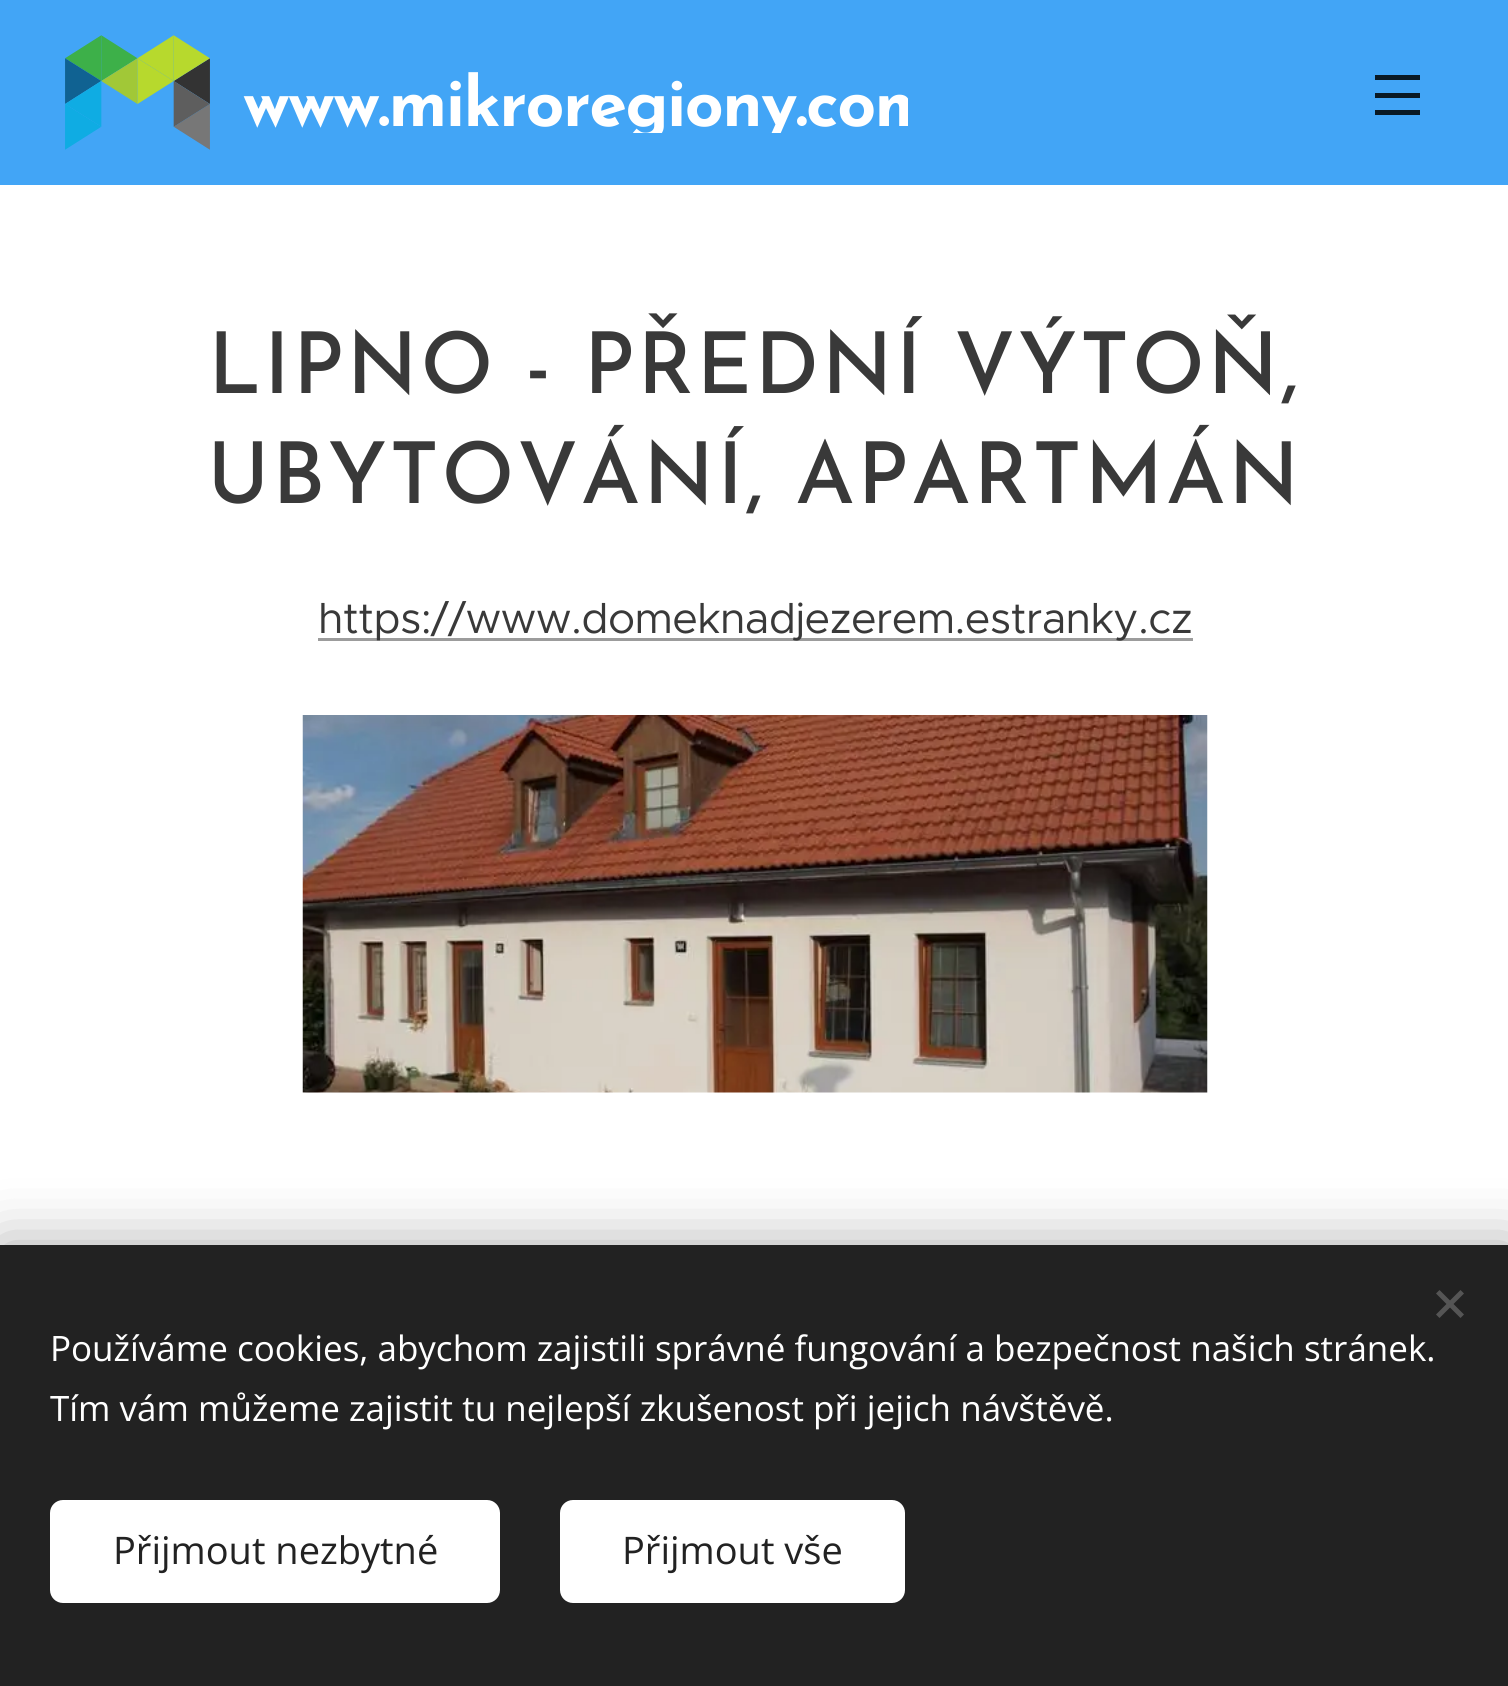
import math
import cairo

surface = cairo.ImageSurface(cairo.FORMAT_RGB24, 1508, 1686)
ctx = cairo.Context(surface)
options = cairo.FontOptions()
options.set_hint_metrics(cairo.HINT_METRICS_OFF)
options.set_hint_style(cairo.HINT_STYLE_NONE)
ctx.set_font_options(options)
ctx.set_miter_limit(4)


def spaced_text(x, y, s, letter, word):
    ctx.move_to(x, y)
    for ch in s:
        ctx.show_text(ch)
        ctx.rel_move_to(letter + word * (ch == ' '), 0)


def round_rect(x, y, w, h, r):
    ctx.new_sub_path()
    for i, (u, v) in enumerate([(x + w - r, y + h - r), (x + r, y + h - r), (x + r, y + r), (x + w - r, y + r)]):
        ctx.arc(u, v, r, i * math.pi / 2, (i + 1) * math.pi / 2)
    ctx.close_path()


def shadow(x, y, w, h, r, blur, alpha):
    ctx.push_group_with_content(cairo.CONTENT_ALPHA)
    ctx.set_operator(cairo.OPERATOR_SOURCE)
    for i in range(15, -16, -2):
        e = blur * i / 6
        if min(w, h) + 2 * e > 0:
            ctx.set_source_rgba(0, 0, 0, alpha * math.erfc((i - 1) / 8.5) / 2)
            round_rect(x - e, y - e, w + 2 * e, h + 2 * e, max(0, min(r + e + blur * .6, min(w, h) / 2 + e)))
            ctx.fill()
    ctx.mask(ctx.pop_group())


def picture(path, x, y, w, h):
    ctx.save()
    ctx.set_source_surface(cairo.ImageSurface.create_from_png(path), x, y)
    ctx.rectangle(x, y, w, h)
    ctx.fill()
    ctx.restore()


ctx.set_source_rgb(1, 1, 1)
ctx.paint()
ctx.set_source_rgb(0.259, 0.647, 0.961)
ctx.rectangle(0, 0, 1508, 185)
ctx.fill()
picture("img1.png", 65, 35, 145, 115)
ctx.save()
ctx.rectangle(233, 53, 675, 80)
ctx.clip()
ctx.select_font_face("Josefin Sans", cairo.FONT_SLANT_NORMAL, cairo.FONT_WEIGHT_BOLD)
ctx.set_font_size(68.25)
ctx.set_source_rgb(1, 1, 1)
spaced_text(243, 126, "www.mikroregiony.com", -1.6, 0)
ctx.restore()
ctx.set_source_rgb(0.039, 0.098, 0.145)
ctx.rectangle(1375, 93, 45, 5)
ctx.fill()
ctx.rectangle(1375, 75, 45, 5)
ctx.fill()
ctx.rectangle(1375, 110, 45, 5)
ctx.fill()
ctx.select_font_face("Josefin Sans Medium")
ctx.set_font_size(85)
ctx.set_source_rgb(0.224, 0.224, 0.224)
spaced_text(208, 393, "LIPNO - PŘEDNÍ VÝTOŇ,", 2.55, 0)
spaced_text(207, 503, "UBYTOVÁNÍ, APARTMÁN", 2.55, 0)
ctx.set_source_rgb(0.612, 0.612, 0.612)
ctx.rectangle(318, 638, 875, 3)
ctx.fill()
ctx.select_font_face("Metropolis")
ctx.set_font_size(43)
ctx.set_source_rgb(0.224, 0.224, 0.224)
spaced_text(318, 633, "https://www.domeknadjezerem.estranky.cz", -0.65, 0)
picture("img2.png", 302, 715, 906, 378)
ctx.set_source_rgb(0, 0, 0)
shadow(0, 1245, 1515, 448, 0, 31, 0.33)
ctx.set_source_rgb(0.133, 0.133, 0.133)
ctx.rectangle(0, 1245, 1508, 441)
ctx.fill()
ctx.set_source_rgb(0.333, 0.333, 0.333)
ctx.new_path()
ctx.move_to(1436, 1314.5)
ctx.line_to(1460.5, 1290)
ctx.line_to(1464, 1293.5)
ctx.line_to(1439.5, 1318)
ctx.close_path()
ctx.fill()
ctx.new_path()
ctx.move_to(1439.5, 1290)
ctx.line_to(1464, 1314.5)
ctx.line_to(1460.5, 1318)
ctx.line_to(1436, 1293.5)
ctx.close_path()
ctx.fill()
ctx.select_font_face("Open Sans")
ctx.set_font_size(35)
ctx.set_source_rgb(1, 1, 1)
ctx.move_to(50, 1361)
ctx.show_text("Používáme cookies, abychom zajistili správné fungování a bezpečnost našich stránek.")
ctx.move_to(50, 1421)
ctx.show_text("Tím vám můžeme zajistit tu nejlepší zkušenost při jejich návštěvě.")
round_rect(50, 1500, 450, 103, 13)
ctx.fill()
ctx.set_font_size(38)
ctx.set_source_rgb(0.133, 0.133, 0.133)
ctx.move_to(113, 1564)
ctx.show_text("Přijmout nezbytné")
ctx.set_source_rgb(1, 1, 1)
round_rect(560, 1500, 345, 103, 13)
ctx.fill()
ctx.set_source_rgb(0.133, 0.133, 0.133)
ctx.move_to(622, 1564)
ctx.show_text("Přijmout vše")
surface.write_to_png("page.png")
